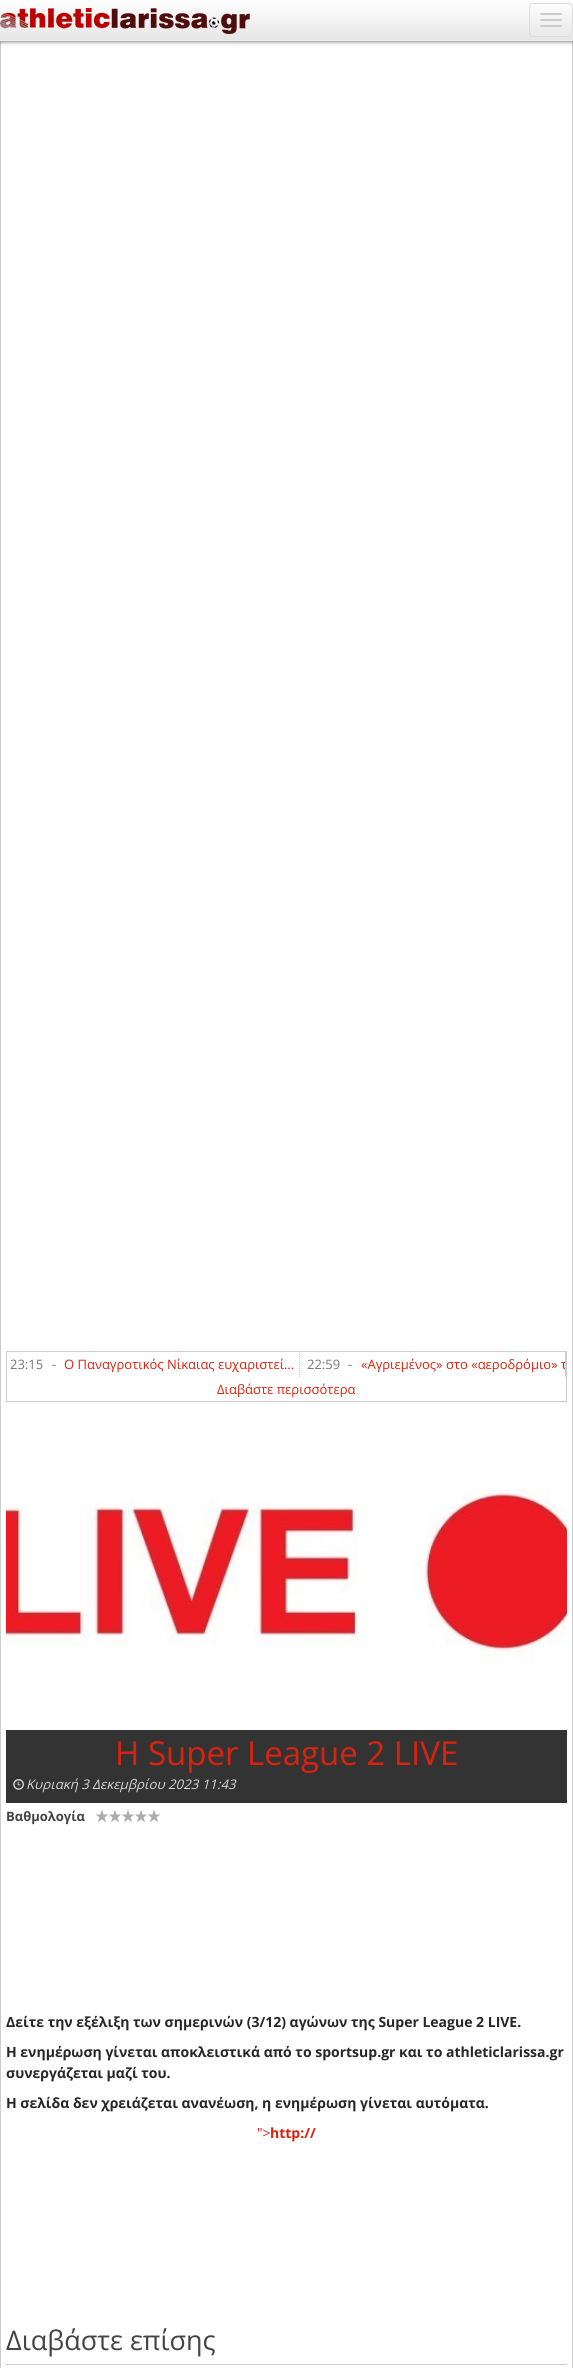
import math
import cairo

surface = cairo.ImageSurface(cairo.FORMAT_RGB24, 573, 2368)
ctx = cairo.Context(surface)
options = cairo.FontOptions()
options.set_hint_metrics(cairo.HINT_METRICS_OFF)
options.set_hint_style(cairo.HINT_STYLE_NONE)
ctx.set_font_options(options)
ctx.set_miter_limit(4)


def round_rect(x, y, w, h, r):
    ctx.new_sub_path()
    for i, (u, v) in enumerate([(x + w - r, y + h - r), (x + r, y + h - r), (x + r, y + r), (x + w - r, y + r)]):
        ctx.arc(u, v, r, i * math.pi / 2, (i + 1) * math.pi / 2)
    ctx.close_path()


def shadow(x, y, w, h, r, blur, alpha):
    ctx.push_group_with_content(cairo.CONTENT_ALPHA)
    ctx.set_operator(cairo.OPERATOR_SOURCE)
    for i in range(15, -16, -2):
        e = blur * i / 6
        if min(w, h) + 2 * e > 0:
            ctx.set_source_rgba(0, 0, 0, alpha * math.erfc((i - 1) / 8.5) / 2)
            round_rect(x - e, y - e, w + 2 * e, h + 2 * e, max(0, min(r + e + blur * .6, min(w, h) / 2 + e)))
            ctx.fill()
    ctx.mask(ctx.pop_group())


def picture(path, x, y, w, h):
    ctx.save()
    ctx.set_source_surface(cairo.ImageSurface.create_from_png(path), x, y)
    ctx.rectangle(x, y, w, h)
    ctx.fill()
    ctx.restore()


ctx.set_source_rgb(1, 1, 1)
ctx.paint()
ctx.rectangle(0.5, 35.5, 572, 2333)
ctx.set_source_rgb(0.8, 0.8, 0.8)
ctx.set_line_width(1)
ctx.stroke()
ctx.set_source_rgb(0.302, 0.302, 0.302)
shadow(0, 0, 573, 41, 0, 2.5, 1)
gradient = cairo.LinearGradient(287, 0, 287, 40)
gradient.add_color_stop_rgba(0, 1, 1, 1, 1)
gradient.add_color_stop_rgba(1, 0.902, 0.902, 0.902, 1)
ctx.set_source(gradient)
ctx.rectangle(0, 0, 573, 40)
ctx.fill()
ctx.set_source_rgb(0.933, 0.933, 0.933)
ctx.rectangle(0, 40, 573, 1)
ctx.fill()
picture("img1.png", 0, 8, 250, 26)
round_rect(529.5, 3.5, 43, 33, 3.5)
ctx.set_source_rgb(0.867, 0.867, 0.867)
ctx.stroke()
ctx.set_source_rgb(0.8, 0.8, 0.8)
round_rect(540, 13, 22, 2, 1)
ctx.fill()
round_rect(540, 19, 22, 2, 1)
ctx.fill()
round_rect(540, 25, 22, 2, 1)
ctx.fill()
ctx.rectangle(6.5, 1351.5, 560, 50)
ctx.stroke()
ctx.rectangle(565, 1352, 1, 25)
ctx.fill()
ctx.new_path()
ctx.move_to(299.5, 1352)
ctx.line_to(299.5, 1377)
ctx.set_dash([1, 1])
ctx.stroke()
ctx.select_font_face("Open Sans")
ctx.set_font_size(13)
ctx.set_source_rgb(0.467, 0.467, 0.467)
ctx.move_to(10, 1369)
ctx.show_text("23:15")
ctx.move_to(52, 1369)
ctx.show_text("-")
ctx.set_source_rgb(0.851, 0.137, 0.059)
ctx.move_to(64, 1369)
ctx.show_text("Ο Παναγροτικός Νίκαιας ευχαριστεί…")
ctx.set_source_rgb(0.467, 0.467, 0.467)
ctx.move_to(307, 1369)
ctx.show_text("22:59")
ctx.move_to(348, 1369)
ctx.show_text("-")
ctx.save()
ctx.rectangle(7, 1352, 558, 25)
ctx.clip()
ctx.set_source_rgb(0.851, 0.137, 0.059)
ctx.move_to(361, 1369)
ctx.show_text("«Αγριεμένος» στο «αεροδρόμιο» τ")
ctx.restore()
ctx.set_source_rgb(0.851, 0.137, 0.059)
ctx.move_to(217, 1394)
ctx.show_text("Διαβάστε περισσότερα")
picture("img2.png", 6, 1489, 561, 174)
ctx.set_source_rgb(0.2, 0.2, 0.2)
ctx.rectangle(6, 1730, 561, 73)
ctx.fill()
ctx.set_font_size(33)
ctx.set_source_rgb(0.851, 0.137, 0.059)
ctx.move_to(115, 1765)
ctx.show_text("H Super League 2 LIVE")
picture("img3.png", 13, 1779, 11, 11)
ctx.select_font_face("Open Sans", cairo.FONT_SLANT_ITALIC)
ctx.set_font_size(13.25)
ctx.set_source_rgb(0.839, 0.839, 0.839)
ctx.move_to(26, 1789)
ctx.show_text("Κυριακή 3 Δεκεμβρίου 2023 11:43")
ctx.select_font_face("Open Sans", cairo.FONT_SLANT_NORMAL, cairo.FONT_WEIGHT_BOLD)
ctx.set_font_size(13)
ctx.set_source_rgb(0.267, 0.267, 0.267)
ctx.move_to(6, 1821)
ctx.show_text("Βαθμολογία")
picture("img4.png", 96, 1810, 12, 12)
picture("img4.png", 109, 1810, 12, 12)
picture("img4.png", 122, 1810, 12, 12)
picture("img4.png", 135, 1810, 12, 12)
picture("img4.png", 148, 1810, 12, 12)
ctx.set_font_size(14)
ctx.set_source_rgb(0.153, 0.153, 0.153)
ctx.move_to(6, 2027)
ctx.show_text("Δείτε την εξέλιξη των σημερινών (3/12) αγώνων της Super League 2 LIVE.")
ctx.move_to(6, 2057)
ctx.show_text("Η ενημέρωση γίνεται αποκλειστικά από το sportsup.gr και το athleticlarissa.gr")
ctx.move_to(6, 2078)
ctx.show_text("συνεργάζεται μαζί του.")
ctx.move_to(6, 2108)
ctx.show_text("Η σελίδα δεν χρειάζεται ανανέωση, η ενημέρωση γίνεται αυτόματα.")
ctx.select_font_face("Open Sans")
ctx.set_source_rgb(0.851, 0.137, 0.059)
ctx.move_to(257, 2138)
ctx.show_text("\">")
ctx.select_font_face("Open Sans", cairo.FONT_SLANT_NORMAL, cairo.FONT_WEIGHT_BOLD)
ctx.move_to(270, 2138)
ctx.show_text("http://")
ctx.set_source_rgb(0.8, 0.8, 0.8)
ctx.rectangle(6, 2364, 561, 1)
ctx.fill()
ctx.select_font_face("Open Sans")
ctx.set_font_size(27)
ctx.set_source_rgb(0.267, 0.267, 0.267)
ctx.move_to(6, 2350)
ctx.show_text("Διαβάστε επίσης")
surface.write_to_png("page.png")
